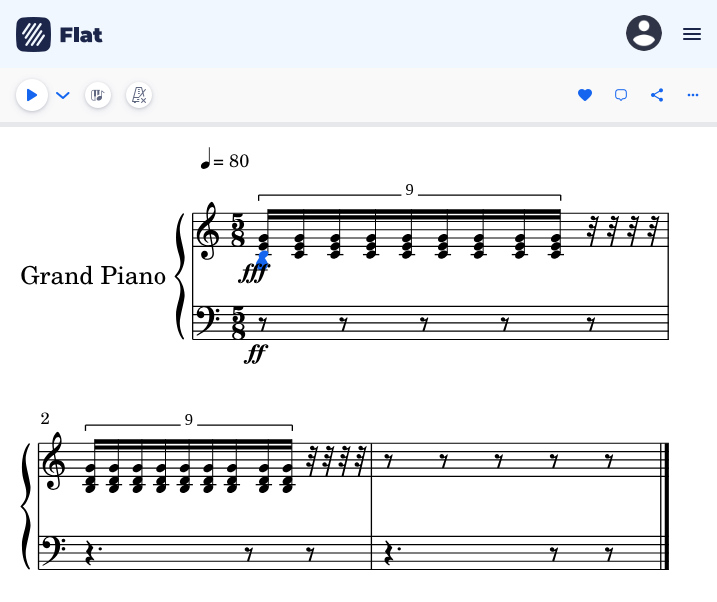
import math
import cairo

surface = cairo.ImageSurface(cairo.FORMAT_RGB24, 717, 602)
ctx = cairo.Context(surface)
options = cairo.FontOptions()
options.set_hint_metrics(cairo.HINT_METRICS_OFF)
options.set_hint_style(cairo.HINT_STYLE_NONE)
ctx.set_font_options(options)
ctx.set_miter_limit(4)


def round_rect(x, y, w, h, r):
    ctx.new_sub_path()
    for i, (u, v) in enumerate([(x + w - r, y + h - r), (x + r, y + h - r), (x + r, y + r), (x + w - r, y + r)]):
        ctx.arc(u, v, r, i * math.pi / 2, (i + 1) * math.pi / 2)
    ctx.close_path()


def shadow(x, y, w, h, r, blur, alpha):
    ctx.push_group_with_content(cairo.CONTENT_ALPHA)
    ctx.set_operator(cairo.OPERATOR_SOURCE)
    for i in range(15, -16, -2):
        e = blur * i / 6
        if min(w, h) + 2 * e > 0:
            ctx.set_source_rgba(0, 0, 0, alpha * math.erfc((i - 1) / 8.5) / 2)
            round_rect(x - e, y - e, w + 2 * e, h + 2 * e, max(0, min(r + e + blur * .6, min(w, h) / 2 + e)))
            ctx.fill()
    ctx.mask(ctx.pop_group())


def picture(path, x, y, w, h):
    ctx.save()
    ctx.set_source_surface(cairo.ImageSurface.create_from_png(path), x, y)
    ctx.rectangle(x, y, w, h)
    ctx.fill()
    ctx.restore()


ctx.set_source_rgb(1, 1, 1)
ctx.paint()
ctx.set_source_rgb(0.945, 0.965, 0.996)
ctx.rectangle(0, 0, 717, 68)
ctx.fill()
picture("img1.png", 16, 17, 87, 35)
ctx.set_source_rgb(1, 1, 1)
ctx.arc(644, 33, 18, 0, 2 * math.pi)
ctx.fill()
picture("img2.png", 626, 15, 36, 36)
ctx.set_source_rgb(0.11, 0.149, 0.29)
round_rect(683, 28, 18, 2, 1)
ctx.fill()
round_rect(683, 33, 18, 2, 1)
ctx.fill()
round_rect(683, 38, 18, 2, 1)
ctx.fill()
ctx.set_source_rgb(0.976, 0.976, 0.98)
ctx.rectangle(0, 68, 717, 54)
ctx.fill()
ctx.set_source_rgb(0.157, 0.188, 0.31)
shadow(16, 80, 32, 32, 16, 1.5, 0.2)
shadow(16, 81, 32, 32, 16, 4, 0.1)
ctx.set_source_rgb(1, 1, 1)
ctx.arc(32, 95, 16, 0, 2 * math.pi)
ctx.fill()
picture("img3.png", 27, 88, 11, 14)
ctx.new_path()
ctx.move_to(57, 93)
ctx.line_to(63, 98)
ctx.line_to(68.5, 93)
ctx.set_source_rgb(0.082, 0.396, 0.937)
ctx.set_line_cap(cairo.LINE_CAP_ROUND)
ctx.set_line_join(cairo.LINE_JOIN_ROUND)
ctx.stroke()
ctx.set_source_rgb(0.157, 0.188, 0.31)
shadow(85, 83, 26, 26, 13, 1.5, 0.2)
shadow(85, 84, 26, 26, 13, 4, 0.1)
ctx.set_source_rgb(1, 1, 1)
ctx.arc(98, 95, 13, 0, 2 * math.pi)
ctx.fill()
picture("img4.png", 91, 89, 14, 12)
ctx.set_source_rgb(0.157, 0.188, 0.31)
shadow(126, 83, 26, 26, 13, 1.5, 0.2)
shadow(126, 84, 26, 26, 13, 4, 0.1)
ctx.set_source_rgb(1, 1, 1)
ctx.arc(139, 95, 13, 0, 2 * math.pi)
ctx.fill()
picture("img5.png", 132, 87, 14, 16)
picture("img6.png", 578, 89, 14, 12)
picture("img7.png", 615, 89, 12, 12)
picture("img8.png", 651, 88, 12, 14)
picture("img9.png", 687, 93, 12, 4)
ctx.set_source_rgb(0.906, 0.91, 0.925)
ctx.rectangle(0, 122, 717, 5)
ctx.fill()
picture("img10.png", 21, 147, 648, 217)
picture("img11.png", 20, 412, 649, 158)
surface.write_to_png("page.png")
